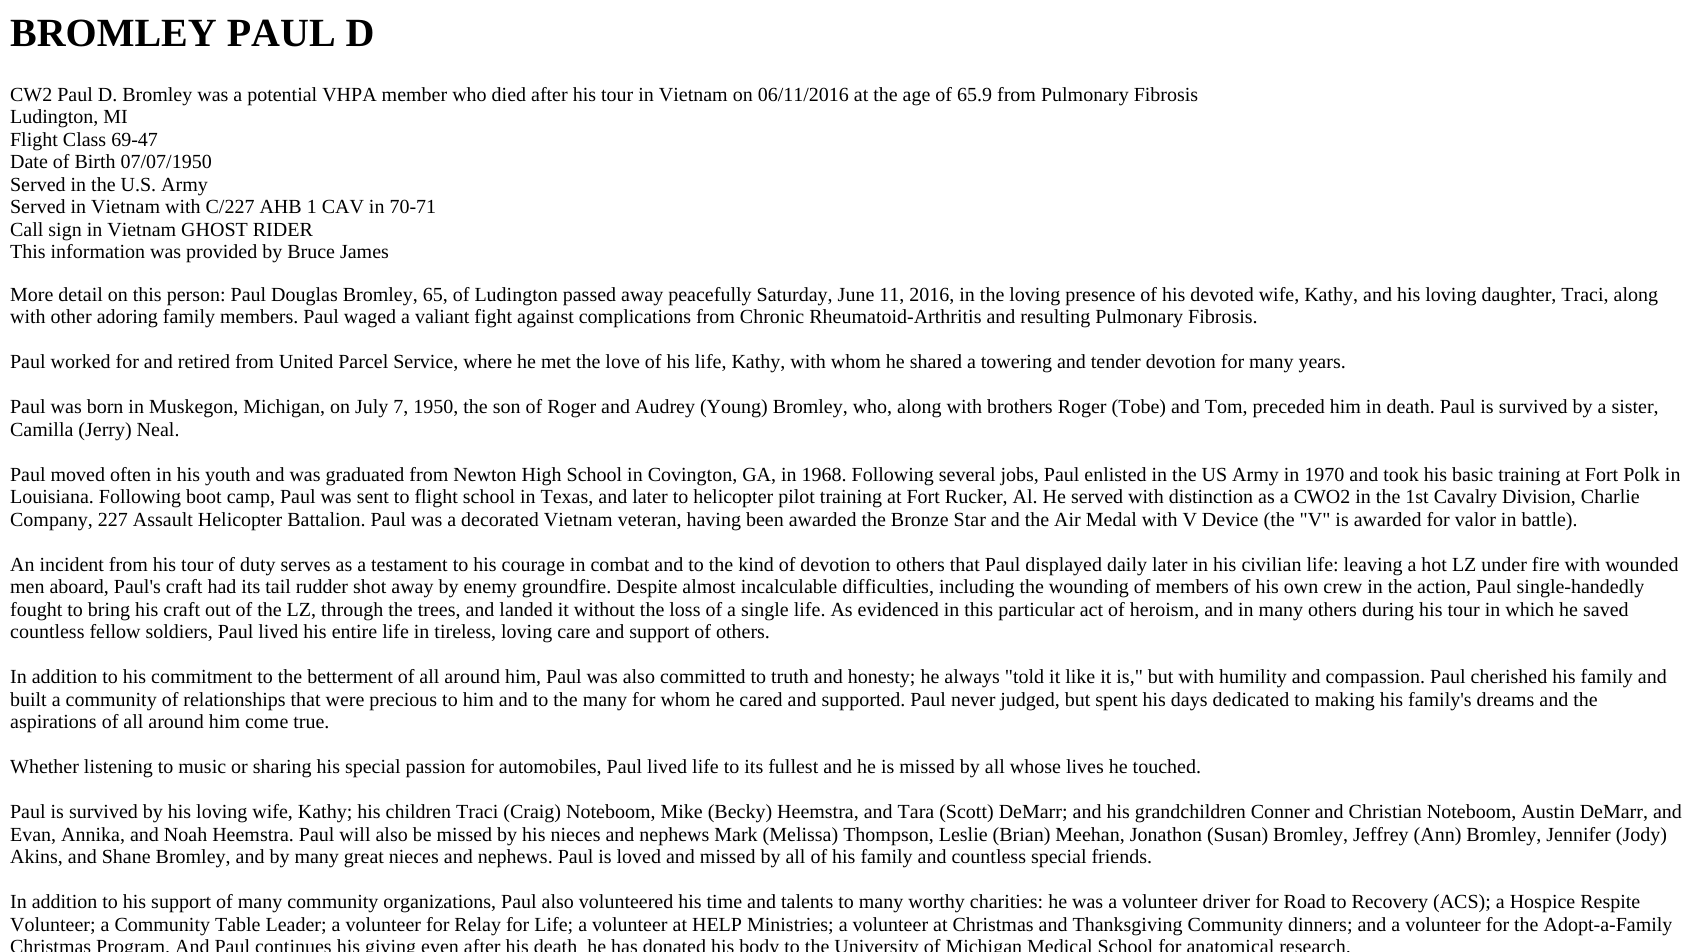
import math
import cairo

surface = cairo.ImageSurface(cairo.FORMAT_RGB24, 1698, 952)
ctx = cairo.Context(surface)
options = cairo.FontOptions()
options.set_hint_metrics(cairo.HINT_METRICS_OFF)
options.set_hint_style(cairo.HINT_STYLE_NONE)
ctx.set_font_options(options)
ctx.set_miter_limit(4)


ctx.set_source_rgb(1, 1, 1)
ctx.paint()
ctx.select_font_face("Liberation Serif", cairo.FONT_SLANT_NORMAL, cairo.FONT_WEIGHT_BOLD)
ctx.set_font_size(40)
ctx.set_source_rgb(0, 0, 0)
ctx.move_to(10, 46)
ctx.show_text("BROMLEY PAUL D")
ctx.select_font_face("Liberation Serif")
ctx.set_font_size(20)
ctx.move_to(10, 101)
ctx.show_text("CW2 Paul D. Bromley was a potential VHPA member who died after his tour in Vietnam on 06/11/2016 at the age of 65.9 from Pulmonary Fibrosis")
ctx.move_to(10, 123)
ctx.show_text("Ludington, MI")
ctx.move_to(10, 146)
ctx.show_text("Flight Class 69-47")
ctx.move_to(10, 168)
ctx.show_text("Date of Birth 07/07/1950")
ctx.move_to(10, 191)
ctx.show_text("Served in the U.S. Army")
ctx.move_to(10, 213)
ctx.show_text("Served in Vietnam with C/227 AHB 1 CAV in 70-71")
ctx.move_to(10, 236)
ctx.show_text("Call sign in Vietnam GHOST RIDER")
ctx.move_to(10, 258)
ctx.show_text("This information was provided by Bruce James")
ctx.move_to(10, 301)
ctx.show_text("More detail on this person: Paul Douglas Bromley, 65, of Ludington passed away peacefully Saturday, June 11, 2016, in the loving presence of his devoted wife, Kathy, and his loving daughter, Traci, along")
ctx.move_to(10, 323)
ctx.show_text("with other adoring family members. Paul waged a valiant fight against complications from Chronic Rheumatoid-Arthritis and resulting Pulmonary Fibrosis.")
ctx.move_to(10, 368)
ctx.show_text("Paul worked for and retired from United Parcel Service, where he met the love of his life, Kathy, with whom he shared a towering and tender devotion for many years.")
ctx.move_to(10, 413)
ctx.show_text("Paul was born in Muskegon, Michigan, on July 7, 1950, the son of Roger and Audrey (Young) Bromley, who, along with brothers Roger (Tobe) and Tom, preceded him in death. Paul is survived by a sister,")
ctx.move_to(10, 436)
ctx.show_text("Camilla (Jerry) Neal.")
ctx.move_to(10, 481)
ctx.show_text("Paul moved often in his youth and was graduated from Newton High School in Covington, GA, in 1968. Following several jobs, Paul enlisted in the US Army in 1970 and took his basic training at Fort Polk in")
ctx.move_to(10, 503)
ctx.show_text("Louisiana. Following boot camp, Paul was sent to flight school in Texas, and later to helicopter pilot training at Fort Rucker, Al. He served with distinction as a CWO2 in the 1st Cavalry Division, Charlie")
ctx.move_to(10, 526)
ctx.show_text("Company, 227 Assault Helicopter Battalion. Paul was a decorated Vietnam veteran, having been awarded the Bronze Star and the Air Medal with V Device (the \"V\" is awarded for valor in battle).")
ctx.move_to(10, 571)
ctx.show_text("An incident from his tour of duty serves as a testament to his courage in combat and to the kind of devotion to others that Paul displayed daily later in his civilian life: leaving a hot LZ under fire with wounded")
ctx.move_to(10, 593)
ctx.show_text("men aboard, Paul's craft had its tail rudder shot away by enemy groundfire. Despite almost incalculable difficulties, including the wounding of members of his own crew in the action, Paul single-handedly")
ctx.move_to(10, 616)
ctx.show_text("fought to bring his craft out of the LZ, through the trees, and landed it without the loss of a single life. As evidenced in this particular act of heroism, and in many others during his tour in which he saved")
ctx.move_to(10, 638)
ctx.show_text("countless fellow soldiers, Paul lived his entire life in tireless, loving care and support of others.")
ctx.move_to(10, 683)
ctx.show_text("In addition to his commitment to the betterment of all around him, Paul was also committed to truth and honesty; he always \"told it like it is,\" but with humility and compassion. Paul cherished his family and")
ctx.move_to(10, 706)
ctx.show_text("built a community of relationships that were precious to him and to the many for whom he cared and supported. Paul never judged, but spent his days dedicated to making his family's dreams and the")
ctx.move_to(10, 728)
ctx.show_text("aspirations of all around him come true.")
ctx.move_to(10, 773)
ctx.show_text("Whether listening to music or sharing his special passion for automobiles, Paul lived life to its fullest and he is missed by all whose lives he touched.")
ctx.move_to(10, 818)
ctx.show_text("Paul is survived by his loving wife, Kathy; his children Traci (Craig) Noteboom, Mike (Becky) Heemstra, and Tara (Scott) DeMarr; and his grandchildren Conner and Christian Noteboom, Austin DeMarr, and")
ctx.move_to(10, 841)
ctx.show_text("Evan, Annika, and Noah Heemstra. Paul will also be missed by his nieces and nephews Mark (Melissa) Thompson, Leslie (Brian) Meehan, Jonathon (Susan) Bromley, Jeffrey (Ann) Bromley, Jennifer (Jody)")
ctx.move_to(10, 863)
ctx.show_text("Akins, and Shane Bromley, and by many great nieces and nephews. Paul is loved and missed by all of his family and countless special friends.")
ctx.move_to(10, 908)
ctx.show_text("In addition to his support of many community organizations, Paul also volunteered his time and talents to many worthy charities: he was a volunteer driver for Road to Recovery (ACS); a Hospice Respite")
ctx.move_to(10, 931)
ctx.show_text("Volunteer; a Community Table Leader; a volunteer for Relay for Life; a volunteer at HELP Ministries; a volunteer at Christmas and Thanksgiving Community dinners; and a volunteer for the Adopt-a-Family")
ctx.move_to(10, 953)
ctx.show_text("Christmas Program. And Paul continues his giving even after his death_he has donated his body to the University of Michigan Medical School for anatomical research.")
surface.write_to_png("page.png")
